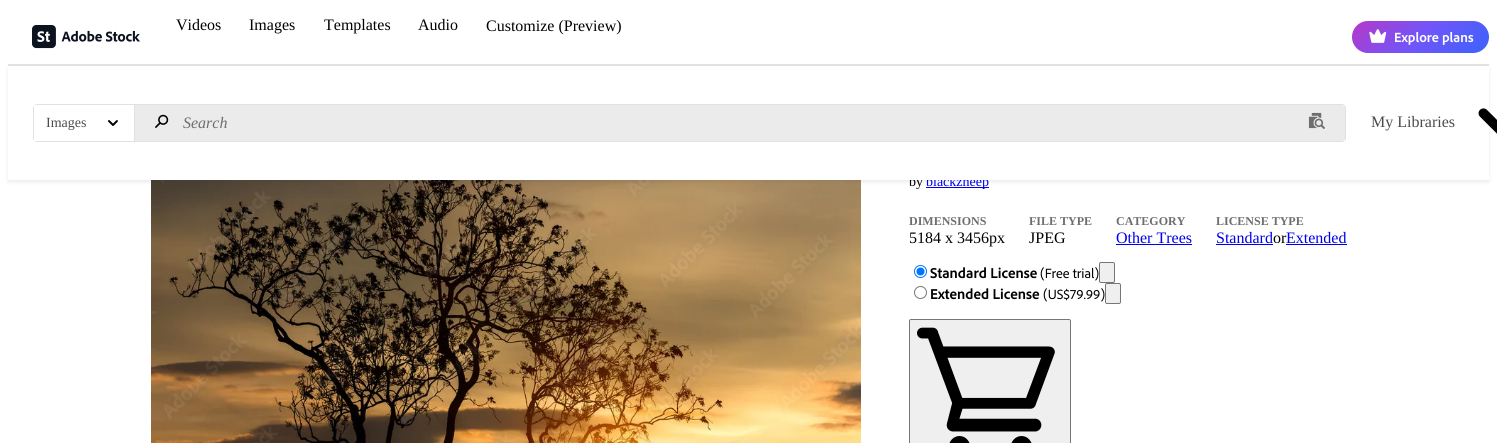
import math
import cairo

surface = cairo.ImageSurface(cairo.FORMAT_RGB24, 1497, 443)
ctx = cairo.Context(surface)
options = cairo.FontOptions()
options.set_hint_metrics(cairo.HINT_METRICS_OFF)
options.set_hint_style(cairo.HINT_STYLE_NONE)
ctx.set_font_options(options)
ctx.set_miter_limit(4)


def round_rect(x, y, w, h, r):
    ctx.new_sub_path()
    for i, (u, v) in enumerate([(x + w - r, y + h - r), (x + r, y + h - r), (x + r, y + r), (x + w - r, y + r)]):
        ctx.arc(u, v, r, i * math.pi / 2, (i + 1) * math.pi / 2)
    ctx.close_path()


def shadow(x, y, w, h, r, blur, alpha):
    ctx.push_group_with_content(cairo.CONTENT_ALPHA)
    ctx.set_operator(cairo.OPERATOR_SOURCE)
    for i in range(15, -16, -2):
        e = blur * i / 6
        if min(w, h) + 2 * e > 0:
            ctx.set_source_rgba(0, 0, 0, alpha * math.erfc((i - 1) / 8.5) / 2)
            round_rect(x - e, y - e, w + 2 * e, h + 2 * e, max(0, min(r + e + blur * .6, min(w, h) / 2 + e)))
            ctx.fill()
    ctx.mask(ctx.pop_group())


def picture(path, x, y, w, h):
    ctx.save()
    ctx.set_source_surface(cairo.ImageSurface.create_from_png(path), x, y)
    ctx.rectangle(x, y, w, h)
    ctx.fill()
    ctx.restore()


ctx.set_source_rgb(1, 1, 1)
ctx.paint()
picture("img7.png", 151, 180, 710, 263)
ctx.set_source_rgb(0, 0, 0.933)
ctx.rectangle(926, 187, 63, 1)
ctx.fill()
ctx.set_source_rgb(0.204, 0.204, 0.204)
shadow(8, 68, 1481, 114, 0, 2, 0.1)
ctx.set_source_rgb(0.882, 0.882, 0.882)
ctx.rectangle(8, 64, 1481, 2)
ctx.fill()
picture("img1.png", 32, 25, 108, 24)
ctx.select_font_face("Liberation Serif")
ctx.set_font_size(16)
ctx.set_source_rgb(0, 0, 0)
ctx.move_to(176, 30)
ctx.show_text("Videos")
ctx.move_to(249, 30)
ctx.show_text("Images")
ctx.move_to(324, 30)
ctx.show_text("Templates")
ctx.move_to(418, 30)
ctx.show_text("Audio")
ctx.move_to(486, 31)
ctx.show_text("Customize (Preview)")
gradient = cairo.LinearGradient(1378, -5.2, 1463, 79)
gradient.add_color_stop_rgba(0, 0.71, 0.224, 0.784, 1)
gradient.add_color_stop_rgba(0.5, 0.443, 0.333, 0.98, 1)
gradient.add_color_stop_rgba(1, 0.231, 0.388, 0.984, 1)
ctx.set_source(gradient)
round_rect(1352, 21, 137, 32, 16)
ctx.fill()
picture("img2.png", 1369, 29, 18, 14)
ctx.select_font_face("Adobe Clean", cairo.FONT_SLANT_NORMAL, cairo.FONT_WEIGHT_BOLD)
ctx.set_font_size(14)
ctx.set_source_rgb(1, 1, 1)
ctx.move_to(1394, 42)
ctx.show_text("Explore plans")
ctx.select_font_face("Liberation Serif")
ctx.set_source_rgb(0, 0, 0)
ctx.move_to(909, 186)
ctx.show_text("by")
ctx.set_source_rgb(0, 0, 0.933)
ctx.move_to(926, 186)
ctx.show_text("blackzheep")
ctx.set_source_rgb(1, 1, 1)
ctx.rectangle(8, 66, 1481, 114)
ctx.fill()
ctx.new_path()
ctx.move_to(37, 104.5)
ctx.line_to(134.5, 104.5)
ctx.line_to(134.5, 141.5)
ctx.line_to(37, 141.5)
ctx.curve_to(35, 141.5, 33.5, 140, 33.5, 138)
ctx.line_to(33.5, 108)
ctx.curve_to(33.5, 106, 35, 104.5, 37, 104.5)
ctx.close_path()
ctx.set_source_rgb(0.882, 0.882, 0.882)
ctx.set_line_width(1)
ctx.stroke()
ctx.set_source_rgb(1, 1, 1)
ctx.rectangle(34, 105, 3, 36)
ctx.fill()
ctx.set_source_rgb(0.294, 0.294, 0.294)
ctx.move_to(46, 127)
ctx.show_text("Images")
picture("img3.png", 108, 120, 10, 6)
ctx.set_source_rgb(0.918, 0.918, 0.918)
ctx.new_path()
ctx.move_to(135, 105)
ctx.line_to(1342, 105)
ctx.curve_to(1343.5, 105, 1345, 106.5, 1345, 108)
ctx.line_to(1345, 138)
ctx.curve_to(1345, 139.5, 1343.5, 141, 1342, 141)
ctx.line_to(135, 141)
ctx.close_path()
ctx.fill()
ctx.set_source_rgb(0.882, 0.882, 0.882)
ctx.set_fill_rule(cairo.FILL_RULE_EVEN_ODD)
ctx.new_path()
ctx.move_to(135, 104)
ctx.line_to(1342, 104)
ctx.curve_to(1344, 104, 1346, 106, 1346, 108)
ctx.line_to(1346, 138)
ctx.curve_to(1346, 140, 1344, 142, 1342, 142)
ctx.line_to(135, 142)
ctx.close_path()
ctx.move_to(135, 105)
ctx.line_to(1342, 105)
ctx.curve_to(1344, 105, 1345, 106, 1345, 108)
ctx.line_to(1345, 138)
ctx.curve_to(1345, 140, 1344, 141, 1342, 141)
ctx.line_to(135, 141)
ctx.close_path()
ctx.fill()
picture("img4.png", 155, 114, 14, 14)
ctx.select_font_face("Liberation Serif", cairo.FONT_SLANT_ITALIC)
ctx.set_font_size(16)
ctx.set_source_rgb(0.431, 0.431, 0.431)
ctx.move_to(183, 128)
ctx.show_text("Search")
picture("img5.png", 1308, 112, 17, 17)
ctx.select_font_face("Liberation Serif")
ctx.set_source_rgb(0.294, 0.294, 0.294)
ctx.move_to(1371, 127)
ctx.show_text("My Libraries")
picture("img6.png", 1478, 108, 19, 26)
ctx.select_font_face("Liberation Serif", cairo.FONT_SLANT_NORMAL, cairo.FONT_WEIGHT_BOLD)
ctx.set_font_size(12)
ctx.set_source_rgb(0.431, 0.431, 0.431)
ctx.move_to(909, 225)
ctx.show_text("DIMENSIONS")
ctx.select_font_face("Liberation Serif")
ctx.set_font_size(16)
ctx.set_source_rgb(0, 0, 0)
ctx.move_to(909, 243)
ctx.show_text("5184 x 3456px")
ctx.select_font_face("Liberation Serif", cairo.FONT_SLANT_NORMAL, cairo.FONT_WEIGHT_BOLD)
ctx.set_font_size(12)
ctx.set_source_rgb(0.431, 0.431, 0.431)
ctx.move_to(1029, 225)
ctx.show_text("FILE TYPE")
ctx.select_font_face("Liberation Serif")
ctx.set_font_size(16)
ctx.set_source_rgb(0, 0, 0)
ctx.move_to(1029, 243)
ctx.show_text("JPEG")
ctx.select_font_face("Liberation Serif", cairo.FONT_SLANT_NORMAL, cairo.FONT_WEIGHT_BOLD)
ctx.set_font_size(12)
ctx.set_source_rgb(0.431, 0.431, 0.431)
ctx.move_to(1116, 225)
ctx.show_text("CATEGORY")
ctx.select_font_face("Liberation Serif")
ctx.set_font_size(16)
ctx.set_source_rgb(0, 0, 0.933)
ctx.move_to(1116, 243)
ctx.show_text("Other Trees")
ctx.rectangle(1116, 244, 76, 1)
ctx.fill()
ctx.select_font_face("Liberation Serif", cairo.FONT_SLANT_NORMAL, cairo.FONT_WEIGHT_BOLD)
ctx.set_font_size(12)
ctx.set_source_rgb(0.431, 0.431, 0.431)
ctx.move_to(1216, 225)
ctx.show_text("LICENSE TYPE")
ctx.select_font_face("Liberation Serif")
ctx.set_font_size(16)
ctx.set_source_rgb(0, 0, 0.933)
ctx.move_to(1216, 243)
ctx.show_text("Standard")
ctx.set_source_rgb(0, 0, 0)
ctx.move_to(1273, 243)
ctx.show_text("or")
ctx.set_source_rgb(0, 0, 0.933)
ctx.rectangle(1216, 244, 57, 1)
ctx.fill()
ctx.rectangle(1286, 244, 61, 1)
ctx.fill()
ctx.move_to(1286, 243)
ctx.show_text("Extended")
ctx.new_path()
ctx.arc(920.5, 271.5, 6, 0, 2 * math.pi)
ctx.set_source_rgb(0, 0.459, 1)
ctx.stroke()
ctx.arc(920.5, 271.5, 4, 0, 2 * math.pi)
ctx.fill()
ctx.select_font_face("Adobe Clean", cairo.FONT_SLANT_NORMAL, cairo.FONT_WEIGHT_BOLD)
ctx.set_font_size(15)
ctx.set_source_rgb(0, 0, 0)
ctx.move_to(930, 278)
ctx.show_text("Standard License")
ctx.select_font_face("Adobe Clean")
ctx.set_font_size(14)
ctx.move_to(1040, 278)
ctx.show_text("(Free trial)")
ctx.set_source_rgb(0.937, 0.937, 0.937)
round_rect(1099.5, 262.5, 15, 20, 1.5)
ctx.fill_preserve()
ctx.set_source_rgb(0.463, 0.463, 0.463)
ctx.stroke()
ctx.arc(920.5, 292.5, 6, 0, 2 * math.pi)
ctx.stroke()
ctx.select_font_face("Adobe Clean", cairo.FONT_SLANT_NORMAL, cairo.FONT_WEIGHT_BOLD)
ctx.set_font_size(15)
ctx.set_source_rgb(0, 0, 0)
ctx.move_to(930, 299)
ctx.show_text("Extended License")
ctx.select_font_face("Adobe Clean")
ctx.set_font_size(14)
ctx.move_to(1043, 299)
ctx.show_text("(US$79.99)")
ctx.set_source_rgb(0.937, 0.937, 0.937)
round_rect(1105.5, 283.5, 15, 20, 1.5)
ctx.fill_preserve()
ctx.set_source_rgb(0.463, 0.463, 0.463)
ctx.stroke()
ctx.set_source_rgb(0.937, 0.937, 0.937)
round_rect(909.5, 319.5, 161, 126, 1.5)
ctx.fill_preserve()
ctx.set_source_rgb(0.463, 0.463, 0.463)
ctx.stroke()
picture("img8.png", 917, 327, 138, 116)
surface.write_to_png("page.png")
